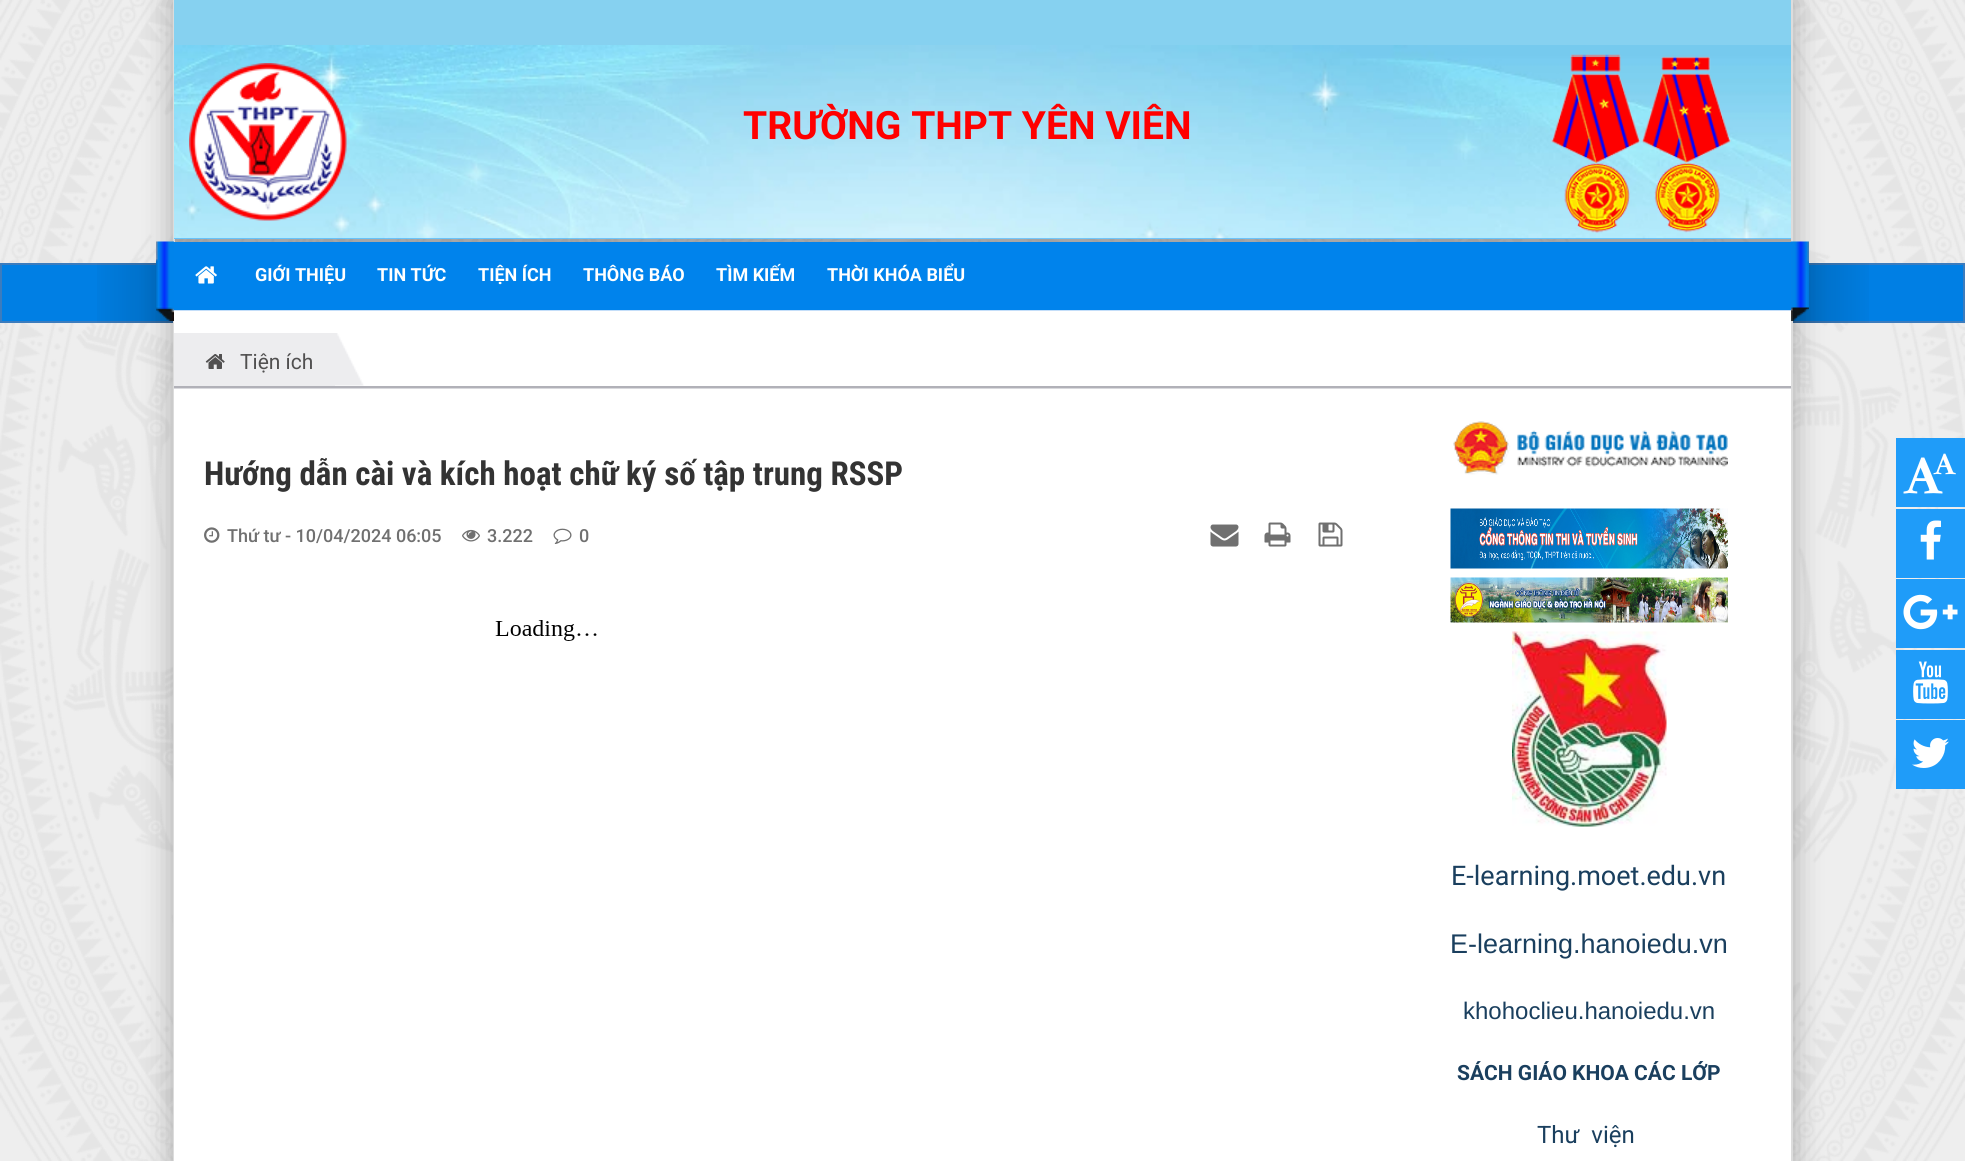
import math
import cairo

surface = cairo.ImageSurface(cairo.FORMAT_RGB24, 1965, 1161)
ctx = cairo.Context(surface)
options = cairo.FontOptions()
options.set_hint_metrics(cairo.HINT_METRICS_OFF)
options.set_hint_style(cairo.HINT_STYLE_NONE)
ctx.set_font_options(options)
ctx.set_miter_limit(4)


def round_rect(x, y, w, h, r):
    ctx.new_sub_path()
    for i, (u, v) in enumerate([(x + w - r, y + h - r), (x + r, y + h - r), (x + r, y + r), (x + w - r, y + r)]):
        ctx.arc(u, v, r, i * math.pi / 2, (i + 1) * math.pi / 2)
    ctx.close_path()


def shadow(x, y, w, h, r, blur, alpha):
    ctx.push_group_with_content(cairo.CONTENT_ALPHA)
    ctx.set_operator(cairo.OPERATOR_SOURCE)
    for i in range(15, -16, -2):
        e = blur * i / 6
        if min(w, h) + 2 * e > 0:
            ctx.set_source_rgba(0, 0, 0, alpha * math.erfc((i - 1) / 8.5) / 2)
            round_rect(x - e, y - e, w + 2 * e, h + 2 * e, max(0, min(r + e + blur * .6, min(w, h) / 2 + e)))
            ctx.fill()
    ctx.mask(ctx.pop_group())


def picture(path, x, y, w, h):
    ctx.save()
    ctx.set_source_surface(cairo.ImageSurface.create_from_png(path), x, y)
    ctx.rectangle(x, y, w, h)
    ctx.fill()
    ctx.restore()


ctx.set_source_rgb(0.933, 0.933, 0.933)
ctx.paint()
picture("img1.png", 0, 0, 1965, 1161)
ctx.set_source_rgb(0, 0.498, 0.894)
ctx.rectangle(1, 264, 1963, 58)
ctx.fill_preserve()
ctx.set_source_rgb(0.231, 0.486, 0.745)
ctx.stroke()
gradient = cairo.LinearGradient(1.5, 293, 173, 293)
gradient.add_color_stop_rgba(0.01, 0, 0, 0, 0)
gradient.add_color_stop_rgba(0.49, 0.008, 0.004, 0.004, 0)
gradient.add_color_stop_rgba(0.8, 0.008, 0.004, 0.004, 0.1)
gradient.add_color_stop_rgba(1, 0.008, 0.004, 0.004, 0.2)
ctx.set_source(gradient)
ctx.rectangle(97, 263, 76, 60)
ctx.fill()
gradient = cairo.LinearGradient(1793, 293, 1964, 293)
gradient.add_color_stop_rgba(0, 0.008, 0.004, 0.004, 0.2)
gradient.add_color_stop_rgba(0.2, 0.008, 0.004, 0.004, 0.1)
gradient.add_color_stop_rgba(0.51, 0.008, 0.004, 0.004, 0)
gradient.add_color_stop_rgba(0.99, 0, 0, 0, 0)
ctx.set_source(gradient)
ctx.rectangle(1793, 263, 76, 60)
ctx.fill()
ctx.save()
ctx.set_fill_rule(cairo.FILL_RULE_EVEN_ODD)
ctx.new_path()
ctx.move_to(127, 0)
ctx.line_to(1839, 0)
ctx.line_to(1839, 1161)
ctx.line_to(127, 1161)
ctx.close_path()
ctx.move_to(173, 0)
ctx.line_to(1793, 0)
ctx.line_to(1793, 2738)
ctx.line_to(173, 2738)
ctx.close_path()
ctx.clip()
ctx.set_source_rgb(0, 0, 0)
shadow(173, 0, 1620, 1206, 0, 15, 0.3)
ctx.restore()
ctx.set_source_rgba(0, 0, 0, 0.3)
ctx.rectangle(175, 239, 1616, 3)
ctx.fill()
ctx.set_source_rgb(0.863, 0.863, 0.863)
ctx.rectangle(1791, 0, 2, 1161)
ctx.fill()
ctx.rectangle(173, 0, 2, 1161)
ctx.fill()
ctx.set_source_rgb(0.525, 0.82, 0.941)
ctx.rectangle(174, 0, 1617, 45)
ctx.fill()
ctx.set_source_rgb(0.106, 0.612, 0.984)
ctx.rectangle(174, 238, 1617, 1)
ctx.fill()
picture("img2.png", 174, 45, 1617, 194)
picture("img3.png", 189, 63, 158, 158)
ctx.select_font_face("Roboto", cairo.FONT_SLANT_NORMAL, cairo.FONT_WEIGHT_BOLD)
ctx.set_font_size(39)
ctx.set_source_rgb(1, 0, 0)
ctx.move_to(743, 139)
ctx.show_text("TRƯỜNG THPT YÊN VIÊN")
picture("img4.png", 1551, 54, 180, 179)
ctx.set_source_rgb(0, 0.514, 0.922)
ctx.rectangle(174, 242, 1617, 68)
ctx.fill()
ctx.set_source_rgb(0.769, 0.871, 0.976)
ctx.rectangle(174, 310, 1617, 1)
ctx.fill()
picture("img5.png", 156, 241, 18, 80)
picture("img6.png", 195, 266, 22, 18)
ctx.set_font_size(18)
ctx.set_source_rgb(1, 1, 1)
ctx.move_to(255, 281)
ctx.show_text("GIỚI THIỆU")
ctx.move_to(377, 281)
ctx.show_text("TIN TỨC")
ctx.move_to(478, 281)
ctx.show_text("TIỆN ÍCH")
ctx.move_to(583, 281)
ctx.show_text("THÔNG BÁO")
ctx.move_to(716, 281)
ctx.show_text("TÌM KIẾM")
ctx.move_to(827, 281)
ctx.show_text("THỜI KHÓA BIỂU")
picture("img7.png", 1791, 241, 18, 80)
ctx.set_source_rgb(0.851, 0.851, 0.867)
ctx.rectangle(174, 388, 1617, 1)
ctx.fill()
ctx.set_source_rgb(1, 1, 1)
ctx.rectangle(174, 311, 1617, 75)
ctx.fill()
ctx.set_source_rgb(0.694, 0.694, 0.722)
ctx.rectangle(174, 386, 1617, 2)
ctx.fill()
picture("img8.png", 335, 333, 29, 53)
ctx.set_source_rgb(0.929, 0.929, 0.937)
ctx.rectangle(174, 333, 161, 53)
ctx.fill()
picture("img9.png", 205, 354, 20, 15)
ctx.select_font_face("Roboto")
ctx.set_font_size(21)
ctx.set_source_rgb(0.318, 0.314, 0.314)
ctx.move_to(240, 369)
ctx.show_text("Tiện ích")
ctx.set_source_rgb(1, 1, 1)
ctx.rectangle(174, 389, 1617, 772)
ctx.fill()
ctx.select_font_face("Roboto Condensed", cairo.FONT_SLANT_NORMAL, cairo.FONT_WEIGHT_BOLD)
ctx.set_font_size(33)
ctx.set_source_rgb(0.2, 0.2, 0.2)
ctx.move_to(204, 485)
ctx.show_text("Hướng dẫn cài và kích hoạt chữ ký số tập trung RSSP")
picture("img10.png", 204, 527, 16, 16)
ctx.select_font_face("Roboto Medium")
ctx.set_font_size(18)
ctx.set_source_rgb(0.439, 0.439, 0.439)
ctx.move_to(227, 542)
ctx.show_text("Thứ tư - 10/04/2024 06:05")
picture("img11.png", 462, 529, 18, 13)
ctx.move_to(487, 542)
ctx.show_text("3.222")
picture("img12.png", 553, 528, 19, 16)
ctx.move_to(579, 542)
ctx.show_text("0")
picture("img13.png", 1210, 524, 29, 23)
picture("img14.png", 1264, 522, 27, 25)
picture("img15.png", 1318, 522, 25, 25)
picture("img16.png", 495, 620, 102, 21)
picture("img17.png", 1453, 421, 275, 54)
picture("img18.png", 1450, 508, 278, 61)
picture("img19.png", 1450, 577, 278, 46)
picture("img20.png", 1512, 631, 155, 196)
ctx.select_font_face("Roboto")
ctx.set_font_size(27)
ctx.set_source_rgb(0.102, 0.247, 0.369)
ctx.move_to(1451, 885)
ctx.show_text("E-learning.moet.edu.vn")
ctx.select_font_face("Liberation Sans")
ctx.move_to(1450, 953)
ctx.show_text("E-learning.hanoiedu.vn")
ctx.set_font_size(24)
ctx.move_to(1463, 1019)
ctx.show_text("khohoclieu.hanoiedu.vn")
ctx.select_font_face("Roboto", cairo.FONT_SLANT_NORMAL, cairo.FONT_WEIGHT_BOLD)
ctx.set_font_size(21)
ctx.move_to(1457, 1080)
ctx.show_text("SÁCH GIÁO KHOA CÁC LỚP")
ctx.select_font_face("Roboto")
ctx.set_font_size(24)
ctx.move_to(1537, 1143)
ctx.show_text("Thư  viện")
ctx.set_source_rgb(0.122, 0.612, 0.973)
ctx.rectangle(1896, 438, 69, 69)
ctx.fill()
picture("img21.png", 1903, 457, 40, 37)
picture("img22.png", 1933, 453, 23, 22)
ctx.rectangle(1896, 509, 69, 69)
ctx.fill()
picture("img23.png", 1920, 520, 21, 40)
ctx.rectangle(1896, 579, 69, 69)
ctx.fill()
picture("img24.png", 1903, 594, 55, 36)
ctx.rectangle(1896, 650, 69, 69)
ctx.fill()
picture("img25.png", 1913, 661, 35, 43)
ctx.rectangle(1896, 720, 69, 69)
ctx.fill()
picture("img26.png", 1912, 738, 37, 30)
surface.write_to_png("page.png")
